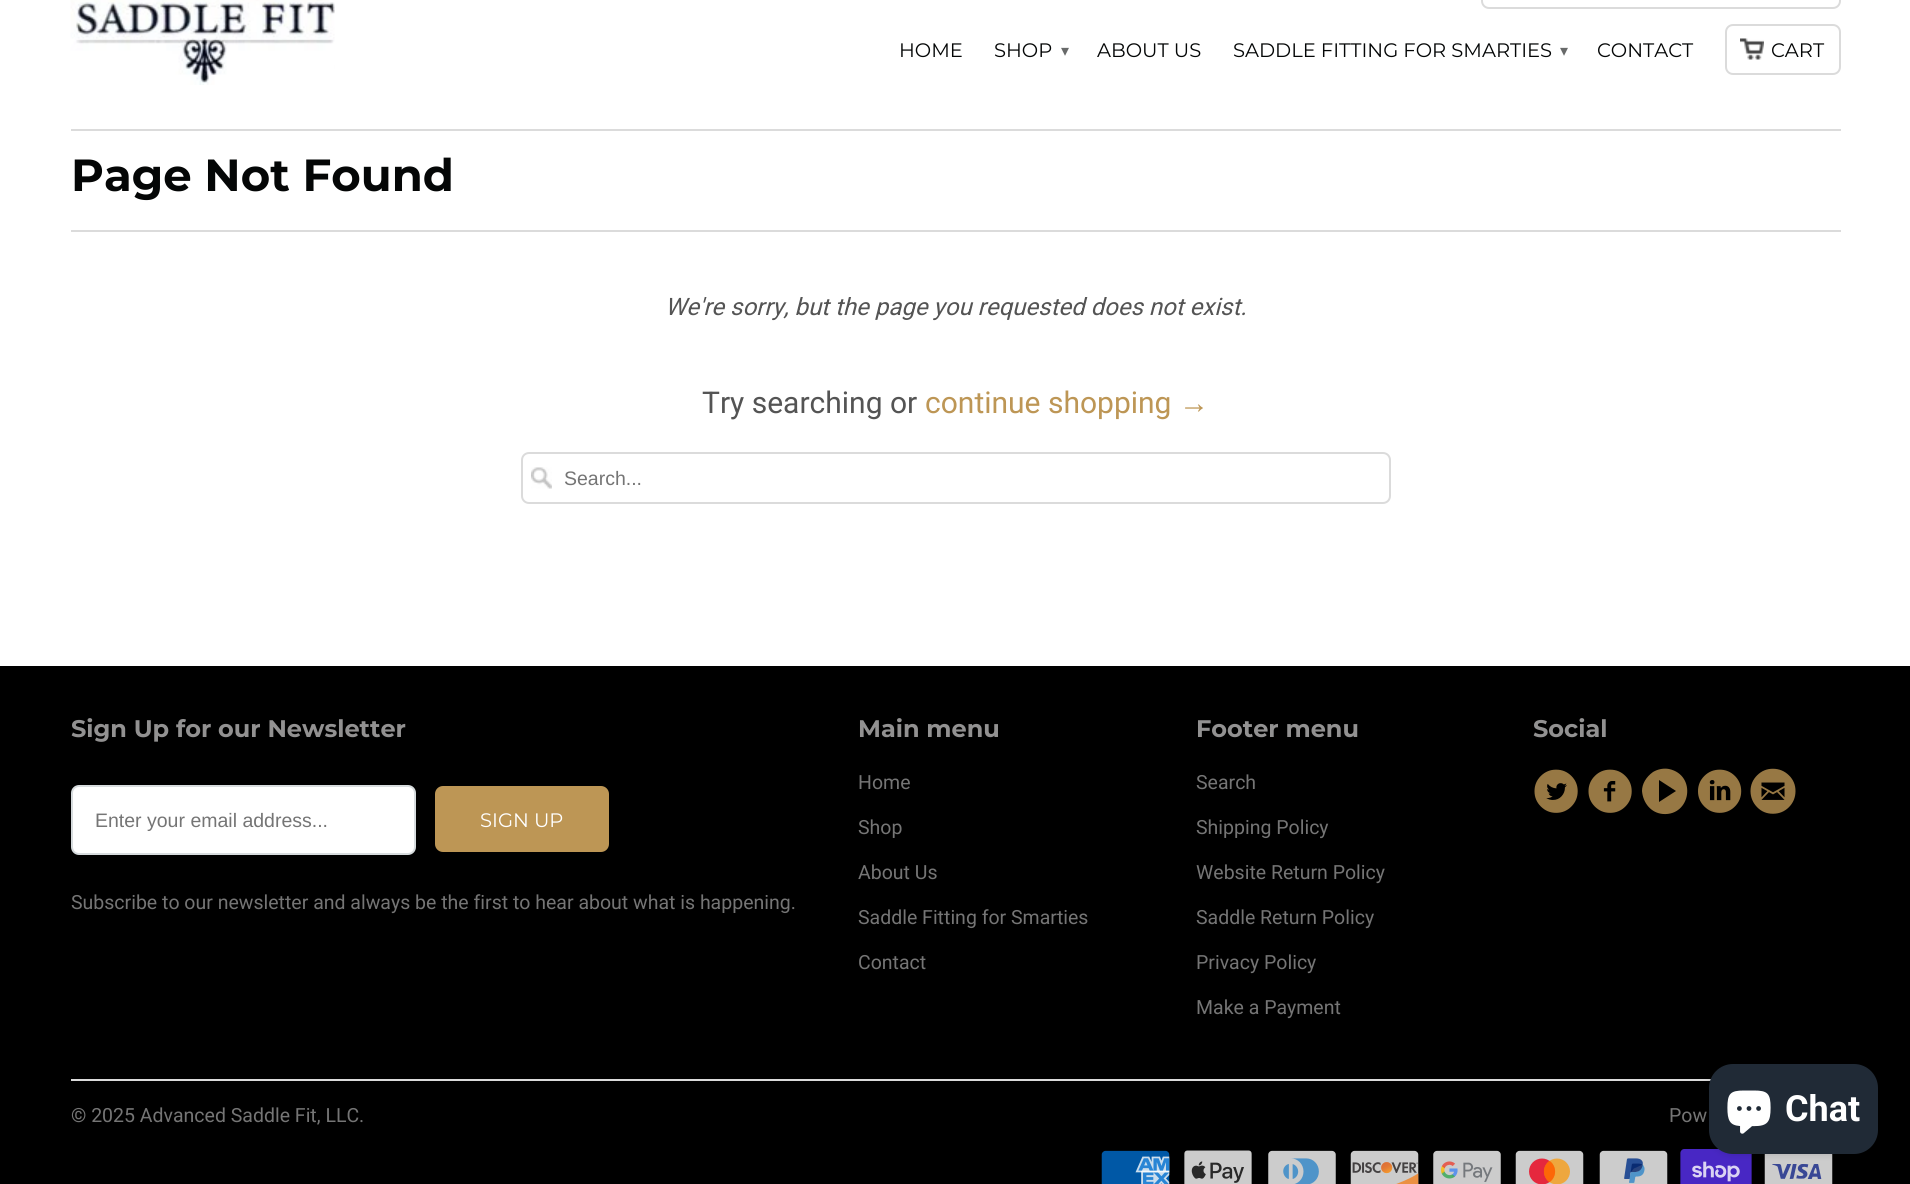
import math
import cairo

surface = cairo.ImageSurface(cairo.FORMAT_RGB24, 1910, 1184)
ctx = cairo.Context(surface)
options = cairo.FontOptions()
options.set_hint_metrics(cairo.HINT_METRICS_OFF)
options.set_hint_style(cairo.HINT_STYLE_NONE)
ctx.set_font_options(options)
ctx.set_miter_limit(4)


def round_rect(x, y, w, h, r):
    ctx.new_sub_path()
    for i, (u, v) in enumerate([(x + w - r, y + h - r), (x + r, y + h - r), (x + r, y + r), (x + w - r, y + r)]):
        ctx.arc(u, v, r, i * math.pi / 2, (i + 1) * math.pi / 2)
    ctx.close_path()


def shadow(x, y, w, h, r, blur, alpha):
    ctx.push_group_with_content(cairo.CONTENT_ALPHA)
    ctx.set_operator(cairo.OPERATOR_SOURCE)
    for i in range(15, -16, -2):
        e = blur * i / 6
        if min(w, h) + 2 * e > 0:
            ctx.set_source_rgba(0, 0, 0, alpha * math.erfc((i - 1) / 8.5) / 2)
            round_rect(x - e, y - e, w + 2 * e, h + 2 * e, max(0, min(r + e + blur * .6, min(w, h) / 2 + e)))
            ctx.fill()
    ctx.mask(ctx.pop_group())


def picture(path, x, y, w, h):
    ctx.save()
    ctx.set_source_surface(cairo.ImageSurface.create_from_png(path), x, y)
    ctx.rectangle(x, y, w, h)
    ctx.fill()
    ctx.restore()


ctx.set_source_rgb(1, 1, 1)
ctx.paint()
ctx.set_source_rgb(0.859, 0.859, 0.859)
ctx.rectangle(71, 129, 1770, 2)
ctx.fill()
picture("img1.png", 70, 0, 265, 85)
round_rect(1482, -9, 358, 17, 7)
ctx.stroke()
ctx.select_font_face("Montserrat")
ctx.set_font_size(19.5)
ctx.set_source_rgb(0.016, 0.027, 0.027)
ctx.move_to(899, 57)
ctx.show_text("HOME")
ctx.move_to(994, 57)
ctx.show_text("SHOP")
ctx.select_font_face("DejaVu Sans")
ctx.set_font_size(16)
ctx.set_source_rgb(0.408, 0.416, 0.416)
ctx.move_to(1061, 56)
ctx.show_text("▾")
ctx.select_font_face("Montserrat")
ctx.set_font_size(19.5)
ctx.set_source_rgb(0.016, 0.027, 0.027)
ctx.move_to(1097, 57)
ctx.show_text("ABOUT US")
ctx.move_to(1233, 57)
ctx.show_text("SADDLE FITTING FOR SMARTIES")
ctx.select_font_face("DejaVu Sans")
ctx.set_font_size(16)
ctx.set_source_rgb(0.408, 0.416, 0.416)
ctx.move_to(1560, 56)
ctx.show_text("▾")
ctx.select_font_face("Montserrat")
ctx.set_font_size(19.5)
ctx.set_source_rgb(0.016, 0.027, 0.027)
ctx.move_to(1597, 57)
ctx.show_text("CONTACT")
picture("img2.png", 1740, 38, 24, 22)
round_rect(1726, 25, 114, 49, 7)
ctx.set_source_rgb(0.859, 0.859, 0.859)
ctx.stroke()
ctx.set_source_rgb(0.016, 0.027, 0.027)
ctx.move_to(1771, 57)
ctx.show_text("CART")
ctx.set_source_rgb(0.859, 0.859, 0.859)
ctx.rectangle(71, 230, 1770, 2)
ctx.fill()
ctx.select_font_face("Montserrat", cairo.FONT_SLANT_NORMAL, cairo.FONT_WEIGHT_BOLD)
ctx.set_font_size(45)
ctx.set_source_rgb(0.016, 0.027, 0.027)
ctx.move_to(71, 191)
ctx.show_text("Page Not Found")
ctx.select_font_face("Roboto", cairo.FONT_SLANT_ITALIC)
ctx.set_font_size(24)
ctx.set_source_rgb(0.329, 0.329, 0.329)
ctx.move_to(665, 315)
ctx.show_text("We're sorry, but the page you requested does not exist.")
ctx.select_font_face("Roboto")
ctx.set_font_size(30)
ctx.move_to(702, 413)
ctx.show_text("Try searching or")
ctx.set_source_rgb(0.741, 0.588, 0.333)
ctx.move_to(925, 413)
ctx.show_text("continue shopping")
ctx.select_font_face("Liberation Serif")
ctx.move_to(1179, 413)
ctx.show_text("→")
picture("img3.png", 531, 467, 21, 22)
round_rect(522, 453, 868, 50, 7)
ctx.set_source_rgb(0.859, 0.859, 0.859)
ctx.stroke()
ctx.select_font_face("Liberation Sans")
ctx.set_font_size(19.5)
ctx.set_source_rgb(0.459, 0.459, 0.459)
ctx.move_to(564, 485)
ctx.show_text("Search...")
ctx.set_source_rgb(0, 0, 0)
ctx.rectangle(0, 666, 1910, 518)
ctx.fill()
ctx.select_font_face("Montserrat", cairo.FONT_SLANT_NORMAL, cairo.FONT_WEIGHT_BOLD)
ctx.set_font_size(24)
ctx.set_source_rgb(0.573, 0.569, 0.569)
ctx.move_to(71, 737)
ctx.show_text("Sign Up for our Newsletter")
ctx.set_source_rgb(1, 1, 1)
round_rect(72, 786, 343, 68, 7)
ctx.fill_preserve()
ctx.set_source_rgb(0.843, 0.863, 0.871)
ctx.stroke()
ctx.select_font_face("Liberation Sans")
ctx.set_font_size(19.5)
ctx.set_source_rgb(0.459, 0.459, 0.459)
ctx.move_to(95, 827)
ctx.show_text("Enter your email address...")
ctx.set_source_rgb(0.741, 0.588, 0.333)
round_rect(435, 786, 174, 66, 8)
ctx.fill()
ctx.select_font_face("Montserrat")
ctx.set_source_rgb(1, 1, 1)
ctx.move_to(480, 827)
ctx.show_text("SIGN UP")
ctx.select_font_face("Roboto")
ctx.set_source_rgb(0.459, 0.459, 0.459)
ctx.move_to(71, 909)
ctx.show_text("Subscribe to our newsletter and always be the first to hear about what is happening.")
ctx.select_font_face("Montserrat", cairo.FONT_SLANT_NORMAL, cairo.FONT_WEIGHT_BOLD)
ctx.set_font_size(24)
ctx.set_source_rgb(0.573, 0.569, 0.569)
ctx.move_to(858, 737)
ctx.show_text("Main menu")
ctx.select_font_face("Roboto")
ctx.set_font_size(19.5)
ctx.set_source_rgb(0.459, 0.459, 0.459)
ctx.move_to(858, 789)
ctx.show_text("Home")
ctx.move_to(858, 834)
ctx.show_text("Shop")
ctx.move_to(858, 879)
ctx.show_text("About Us")
ctx.move_to(858, 924)
ctx.show_text("Saddle Fitting for Smarties")
ctx.move_to(858, 969)
ctx.show_text("Contact")
ctx.select_font_face("Montserrat", cairo.FONT_SLANT_NORMAL, cairo.FONT_WEIGHT_BOLD)
ctx.set_font_size(24)
ctx.set_source_rgb(0.573, 0.569, 0.569)
ctx.move_to(1196, 737)
ctx.show_text("Footer menu")
ctx.select_font_face("Roboto")
ctx.set_font_size(19.5)
ctx.set_source_rgb(0.459, 0.459, 0.459)
ctx.move_to(1196, 789)
ctx.show_text("Search")
ctx.move_to(1196, 834)
ctx.show_text("Shipping Policy")
ctx.move_to(1196, 879)
ctx.show_text("Website Return Policy")
ctx.move_to(1196, 924)
ctx.show_text("Saddle Return Policy")
ctx.move_to(1196, 969)
ctx.show_text("Privacy Policy")
ctx.move_to(1196, 1014)
ctx.show_text("Make a Payment")
ctx.select_font_face("Montserrat", cairo.FONT_SLANT_NORMAL, cairo.FONT_WEIGHT_BOLD)
ctx.set_font_size(24)
ctx.set_source_rgb(0.573, 0.569, 0.569)
ctx.move_to(1533, 737)
ctx.show_text("Social")
picture("img4.png", 1534, 769, 44, 44)
picture("img5.png", 1588, 769, 44, 44)
ctx.set_source_rgb(0.592, 0.471, 0.267)
ctx.new_path()
ctx.move_to(1642, 791)
ctx.curve_to(1642, 784, 1646, 777, 1653, 772)
ctx.curve_to(1658, 769, 1664, 768, 1669, 769)
ctx.curve_to(1697, 775, 1691, 816, 1663, 814)
ctx.curve_to(1651, 813, 1643, 803, 1642, 791)
ctx.close_path()
ctx.move_to(1659, 802)
ctx.line_to(1676, 791)
ctx.line_to(1659, 780)
ctx.close_path()
ctx.fill()
picture("img6.png", 1698, 769, 44, 44)
picture("img7.png", 1750, 768, 46, 46)
ctx.set_source_rgb(0.859, 0.859, 0.859)
ctx.rectangle(71, 1079, 1640, 2)
ctx.fill()
ctx.select_font_face("Roboto")
ctx.set_font_size(19.5)
ctx.set_source_rgb(0.459, 0.459, 0.459)
ctx.move_to(71, 1122)
ctx.show_text("© 2025 Advanced Saddle Fit, LLC.")
ctx.move_to(1669, 1122)
ctx.show_text("Pow")
picture("img8.png", 1101, 1150, 69, 34)
picture("img9.png", 1184, 1150, 68, 34)
picture("img10.png", 1268, 1150, 68, 34)
picture("img11.png", 1350, 1150, 69, 34)
picture("img12.png", 1433, 1150, 68, 34)
picture("img13.png", 1515, 1150, 69, 34)
picture("img14.png", 1599, 1150, 69, 34)
picture("img15.png", 1680, 1149, 72, 35)
picture("img16.png", 1764, 1154, 69, 30)
ctx.set_source_rgb(0, 0, 0)
shadow(1709, 1064, 169, 90, 24, 4, 0.15)
ctx.set_source_rgb(0.125, 0.165, 0.212)
round_rect(1709, 1064, 169, 90, 24)
ctx.fill()
picture("img17.png", 1727, 1090, 44, 44)
ctx.select_font_face("Roboto", cairo.FONT_SLANT_NORMAL, cairo.FONT_WEIGHT_BOLD)
ctx.set_font_size(36)
ctx.set_source_rgb(1, 1, 1)
ctx.move_to(1785, 1121)
ctx.show_text("Chat")
surface.write_to_png("page.png")
